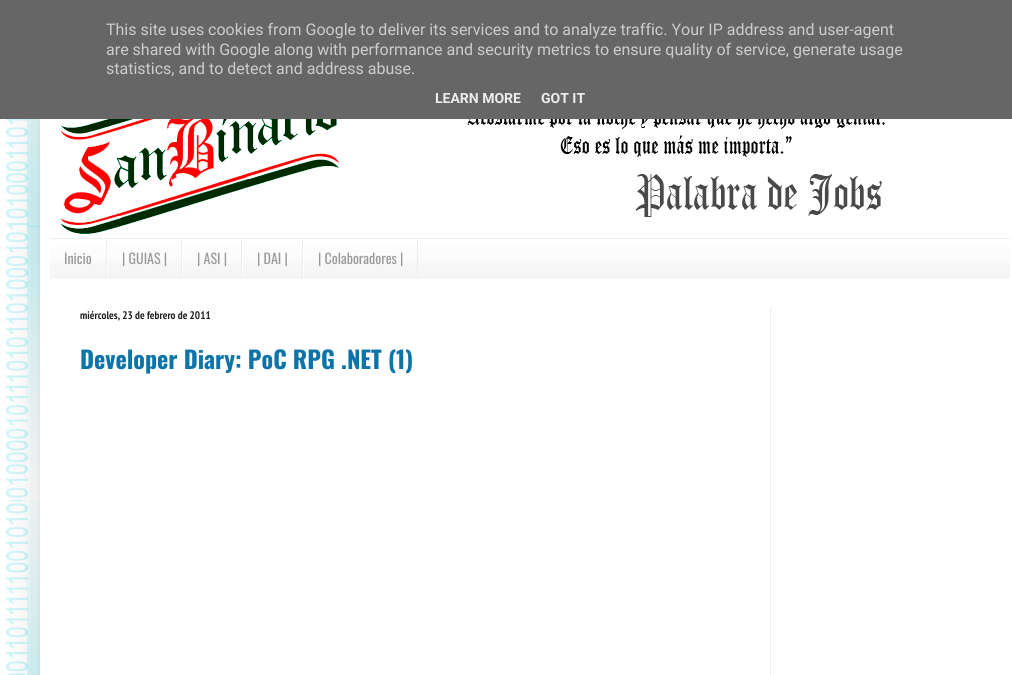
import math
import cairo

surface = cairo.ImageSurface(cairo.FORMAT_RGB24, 1012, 675)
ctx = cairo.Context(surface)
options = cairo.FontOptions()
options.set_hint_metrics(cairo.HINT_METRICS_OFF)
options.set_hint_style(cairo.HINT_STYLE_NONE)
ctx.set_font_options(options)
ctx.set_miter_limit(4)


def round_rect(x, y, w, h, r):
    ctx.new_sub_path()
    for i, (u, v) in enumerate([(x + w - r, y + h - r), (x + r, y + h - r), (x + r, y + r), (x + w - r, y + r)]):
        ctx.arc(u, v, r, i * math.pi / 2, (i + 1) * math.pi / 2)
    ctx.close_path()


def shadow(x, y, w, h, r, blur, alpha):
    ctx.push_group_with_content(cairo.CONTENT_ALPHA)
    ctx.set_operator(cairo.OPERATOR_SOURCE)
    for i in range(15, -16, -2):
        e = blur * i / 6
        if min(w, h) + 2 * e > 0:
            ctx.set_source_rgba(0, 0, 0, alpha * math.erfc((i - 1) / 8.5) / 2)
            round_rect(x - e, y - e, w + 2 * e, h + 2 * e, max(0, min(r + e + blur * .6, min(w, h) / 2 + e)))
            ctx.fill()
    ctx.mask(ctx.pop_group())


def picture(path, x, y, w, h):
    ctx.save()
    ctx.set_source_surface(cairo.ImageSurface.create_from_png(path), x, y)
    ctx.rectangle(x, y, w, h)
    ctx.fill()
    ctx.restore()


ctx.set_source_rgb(1, 1, 1)
ctx.paint()
picture("img1.png", 0, 119, 40, 556)
ctx.set_source_rgb(0, 0, 0)
shadow(40, 30, 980, 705, 0, 20, 0.15)
ctx.set_source_rgb(0.4, 0.4, 0.4)
ctx.rectangle(0, 0, 1012, 119)
ctx.fill()
ctx.select_font_face("Roboto")
ctx.set_font_size(16)
ctx.set_source_rgb(0.8, 0.8, 0.8)
ctx.move_to(106, 35)
ctx.show_text("This site uses cookies from Google to deliver its services and to analyze traffic. Your IP address and user-agent")
ctx.move_to(106, 55)
ctx.show_text("are shared with Google along with performance and security metrics to ensure quality of service, generate usage")
ctx.move_to(106, 74)
ctx.show_text("statistics, and to detect and address abuse.")
ctx.select_font_face("Roboto", cairo.FONT_SLANT_NORMAL, cairo.FONT_WEIGHT_BOLD)
ctx.set_font_size(14)
ctx.set_source_rgb(0.933, 0.933, 0.933)
ctx.move_to(435, 103)
ctx.show_text("LEARN MORE")
ctx.move_to(541, 103)
ctx.show_text("GOT IT")
ctx.set_source_rgb(1, 1, 1)
ctx.rectangle(40, 119, 972, 556)
ctx.fill()
picture("img2.png", 60, 119, 844, 115)
ctx.set_source_rgb(0.961, 0.961, 0.961)
ctx.rectangle(50, 240, 960, 37)
ctx.fill()
picture("img3.png", 50, 239, 960, 24)
ctx.set_source_rgb(0.933, 0.933, 0.933)
ctx.rectangle(50, 238, 960, 1)
ctx.fill()
ctx.rectangle(50, 277, 960, 1)
ctx.fill()
ctx.rectangle(106, 239, 1, 38)
ctx.fill()
ctx.select_font_face("Oswald")
ctx.set_source_rgb(0.6, 0.6, 0.6)
ctx.move_to(64, 264)
ctx.show_text("Inicio")
ctx.set_source_rgb(0.933, 0.933, 0.933)
ctx.rectangle(181, 239, 1, 38)
ctx.fill()
ctx.set_source_rgb(1, 1, 1)
ctx.rectangle(107, 250, 1, 27)
ctx.fill()
ctx.set_source_rgb(0.6, 0.6, 0.6)
ctx.move_to(122, 264)
ctx.show_text("| GUIAS |")
ctx.set_source_rgb(0.933, 0.933, 0.933)
ctx.rectangle(241, 239, 1, 38)
ctx.fill()
ctx.set_source_rgb(1, 1, 1)
ctx.rectangle(182, 250, 1, 27)
ctx.fill()
ctx.set_source_rgb(0.6, 0.6, 0.6)
ctx.move_to(197, 264)
ctx.show_text("| ASI |")
ctx.set_source_rgb(0.933, 0.933, 0.933)
ctx.rectangle(302, 239, 1, 38)
ctx.fill()
ctx.set_source_rgb(1, 1, 1)
ctx.rectangle(242, 250, 1, 27)
ctx.fill()
ctx.set_source_rgb(0.6, 0.6, 0.6)
ctx.move_to(257, 264)
ctx.show_text("| DAI |")
ctx.set_source_rgb(0.933, 0.933, 0.933)
ctx.rectangle(417, 239, 1, 38)
ctx.fill()
ctx.set_source_rgb(1, 1, 1)
ctx.rectangle(303, 250, 1, 27)
ctx.fill()
ctx.set_source_rgb(0.6, 0.6, 0.6)
ctx.move_to(318, 264)
ctx.show_text("| Colaboradores |")
ctx.select_font_face("PT Sans Narrow", cairo.FONT_SLANT_NORMAL, cairo.FONT_WEIGHT_BOLD)
ctx.set_font_size(11)
ctx.set_source_rgb(0.133, 0.133, 0.133)
ctx.move_to(80, 319)
ctx.show_text("miércoles, 23 de febrero de 2011")
ctx.select_font_face("Oswald", cairo.FONT_SLANT_NORMAL, cairo.FONT_WEIGHT_BOLD)
ctx.set_font_size(24)
ctx.set_source_rgb(0.051, 0.455, 0.655)
ctx.move_to(80, 369)
ctx.show_text("Developer Diary: PoC RPG .NET (1)")
ctx.set_source_rgb(0.933, 0.933, 0.933)
ctx.rectangle(770, 308, 1, 367)
ctx.fill()
surface.write_to_png("page.png")
